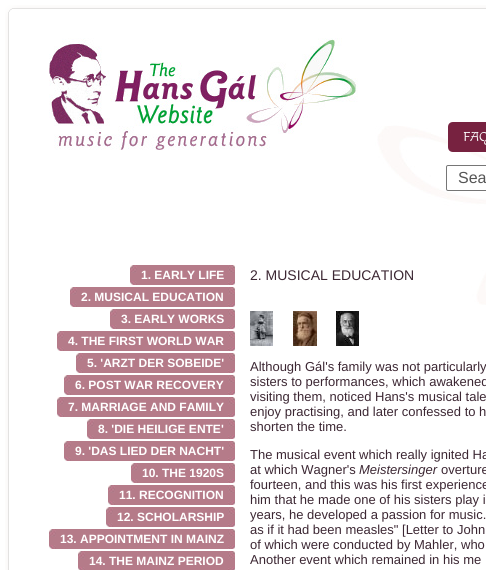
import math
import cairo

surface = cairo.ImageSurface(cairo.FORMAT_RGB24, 486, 570)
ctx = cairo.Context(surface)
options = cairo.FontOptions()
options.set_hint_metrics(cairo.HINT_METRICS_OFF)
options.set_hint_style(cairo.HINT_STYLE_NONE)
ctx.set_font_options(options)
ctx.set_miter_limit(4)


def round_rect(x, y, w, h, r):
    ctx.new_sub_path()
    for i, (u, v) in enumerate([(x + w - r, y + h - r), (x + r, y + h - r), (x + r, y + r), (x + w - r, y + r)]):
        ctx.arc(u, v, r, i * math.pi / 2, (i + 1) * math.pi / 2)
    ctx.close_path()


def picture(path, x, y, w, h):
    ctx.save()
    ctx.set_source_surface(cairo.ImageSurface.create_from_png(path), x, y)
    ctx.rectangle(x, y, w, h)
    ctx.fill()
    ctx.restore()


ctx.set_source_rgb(1, 1, 1)
ctx.paint()
picture("img1.png", 5, 5, 481, 17)
picture("img4.png", 328, 81, 158, 224)
picture("img2.png", 49, 38, 309, 112)
picture("img3.png", 5, 22, 4, 548)
ctx.set_source_rgb(0.467, 0.133, 0.251)
ctx.new_path()
ctx.move_to(453, 122)
ctx.line_to(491, 122)
ctx.line_to(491, 152)
ctx.line_to(453, 152)
ctx.curve_to(450, 152, 448, 150, 448, 147)
ctx.line_to(448, 127)
ctx.curve_to(448, 124, 450, 122, 453, 122)
ctx.close_path()
ctx.fill()
ctx.select_font_face("Macondo")
ctx.set_font_size(13)
ctx.set_source_rgb(0.976, 0.976, 0.976)
ctx.move_to(463, 141)
ctx.show_text("FAQ")
picture("img5.png", 130, 265, 7, 20)
ctx.set_source_rgb(0.71, 0.482, 0.537)
ctx.rectangle(137, 265, 91, 20)
ctx.fill()
ctx.select_font_face("Liberation Sans", cairo.FONT_SLANT_NORMAL, cairo.FONT_WEIGHT_BOLD)
ctx.set_font_size(12)
ctx.set_source_rgb(1, 1, 1)
ctx.move_to(141, 279)
ctx.show_text("1. EARLY LIFE")
picture("img6.png", 228, 265, 7, 20)
picture("img5.png", 70, 287, 7, 20)
ctx.set_source_rgb(0.71, 0.482, 0.537)
ctx.rectangle(77, 287, 151, 20)
ctx.fill()
ctx.set_source_rgb(1, 1, 1)
ctx.move_to(81, 301)
ctx.show_text("2. MUSICAL EDUCATION")
picture("img6.png", 228, 287, 7, 20)
picture("img5.png", 110, 309, 7, 20)
ctx.set_source_rgb(0.71, 0.482, 0.537)
ctx.rectangle(117, 309, 111, 20)
ctx.fill()
ctx.set_source_rgb(1, 1, 1)
ctx.move_to(121, 323)
ctx.show_text("3. EARLY WORKS")
picture("img6.png", 228, 309, 7, 20)
picture("img5.png", 57, 331, 7, 20)
ctx.set_source_rgb(0.71, 0.482, 0.537)
ctx.rectangle(64, 331, 164, 20)
ctx.fill()
ctx.set_source_rgb(1, 1, 1)
ctx.move_to(68, 345)
ctx.show_text("4. THE FIRST WORLD WAR")
picture("img6.png", 228, 331, 7, 20)
picture("img5.png", 76, 353, 7, 20)
ctx.set_source_rgb(0.71, 0.482, 0.537)
ctx.rectangle(83, 353, 145, 20)
ctx.fill()
ctx.set_source_rgb(1, 1, 1)
ctx.move_to(87, 367)
ctx.show_text("5. 'ARZT DER SOBEIDE'")
picture("img6.png", 228, 353, 7, 20)
picture("img5.png", 64, 375, 7, 20)
ctx.set_source_rgb(0.71, 0.482, 0.537)
ctx.rectangle(71, 375, 157, 20)
ctx.fill()
ctx.set_source_rgb(1, 1, 1)
ctx.move_to(75, 389)
ctx.show_text("6. POST WAR RECOVERY")
picture("img6.png", 228, 375, 7, 20)
picture("img5.png", 57, 397, 7, 20)
ctx.set_source_rgb(0.71, 0.482, 0.537)
ctx.rectangle(64, 397, 164, 20)
ctx.fill()
ctx.set_source_rgb(1, 1, 1)
ctx.move_to(68, 411)
ctx.show_text("7. MARRIAGE AND FAMILY")
picture("img6.png", 228, 397, 7, 20)
picture("img5.png", 87, 419, 7, 20)
ctx.set_source_rgb(0.71, 0.482, 0.537)
ctx.rectangle(94, 419, 134, 20)
ctx.fill()
ctx.set_source_rgb(1, 1, 1)
ctx.move_to(98, 433)
ctx.show_text("8. 'DIE HEILIGE ENTE'")
picture("img6.png", 228, 419, 7, 20)
picture("img5.png", 64, 441, 7, 20)
ctx.set_source_rgb(0.71, 0.482, 0.537)
ctx.rectangle(71, 441, 157, 20)
ctx.fill()
ctx.set_source_rgb(1, 1, 1)
ctx.move_to(75, 455)
ctx.show_text("9. 'DAS LIED DER NACHT'")
picture("img6.png", 228, 441, 7, 20)
picture("img5.png", 131, 463, 7, 20)
ctx.set_source_rgb(0.71, 0.482, 0.537)
ctx.rectangle(138, 463, 90, 20)
ctx.fill()
ctx.set_source_rgb(1, 1, 1)
ctx.move_to(142, 477)
ctx.show_text("10. THE 1920S")
picture("img6.png", 228, 463, 7, 20)
picture("img5.png", 108, 485, 7, 20)
ctx.set_source_rgb(0.71, 0.482, 0.537)
ctx.rectangle(115, 485, 113, 20)
ctx.fill()
ctx.set_source_rgb(1, 1, 1)
ctx.move_to(119, 499)
ctx.show_text("11. RECOGNITION")
picture("img6.png", 228, 485, 7, 20)
picture("img5.png", 106, 507, 7, 20)
ctx.set_source_rgb(0.71, 0.482, 0.537)
ctx.rectangle(113, 507, 115, 20)
ctx.fill()
ctx.set_source_rgb(1, 1, 1)
ctx.move_to(117, 521)
ctx.show_text("12. SCHOLARSHIP")
picture("img6.png", 228, 507, 7, 20)
picture("img5.png", 49, 529, 7, 20)
ctx.set_source_rgb(0.71, 0.482, 0.537)
ctx.rectangle(56, 529, 172, 20)
ctx.fill()
ctx.set_source_rgb(1, 1, 1)
ctx.move_to(60, 543)
ctx.show_text("13. APPOINTMENT IN MAINZ")
picture("img6.png", 228, 529, 7, 20)
picture("img7.png", 78, 551, 7, 19)
ctx.set_source_rgb(0.71, 0.482, 0.537)
ctx.rectangle(85, 551, 143, 19)
ctx.fill()
ctx.set_source_rgb(1, 1, 1)
ctx.move_to(89, 565)
ctx.show_text("14. THE MAINZ PERIOD")
picture("img8.png", 228, 551, 7, 19)
ctx.select_font_face("Liberation Sans")
ctx.set_font_size(14)
ctx.set_source_rgb(0.235, 0.153, 0.2)
ctx.move_to(250, 280)
ctx.show_text("2. MUSICAL EDUCATION")
picture("img9.png", 250, 311, 23, 35)
picture("img10.png", 293, 311, 24, 35)
picture("img11.png", 336, 311, 23, 35)
ctx.set_font_size(13)
ctx.move_to(250, 371)
ctx.show_text("Although Gál's family was not particularly")
ctx.move_to(250, 386)
ctx.show_text("sisters to performances, which awakened")
ctx.move_to(250, 401)
ctx.show_text("visiting them, noticed Hans's musical tale")
ctx.move_to(250, 416)
ctx.show_text("enjoy practising, and later confessed to h")
ctx.move_to(250, 431)
ctx.show_text("shorten the time.")
ctx.move_to(250, 459)
ctx.show_text("The musical event which really ignited Ha")
ctx.move_to(250, 474)
ctx.show_text("at which Wagner's")
ctx.select_font_face("Liberation Sans", cairo.FONT_SLANT_ITALIC)
ctx.move_to(359, 474)
ctx.show_text("Meistersinger")
ctx.select_font_face("Liberation Sans")
ctx.move_to(441, 474)
ctx.show_text("overture")
ctx.move_to(250, 489)
ctx.show_text("fourteen, and this was his first experience")
ctx.move_to(250, 504)
ctx.show_text("him that he made one of his sisters play i")
ctx.move_to(250, 519)
ctx.show_text("years, he developed a passion for music.")
ctx.move_to(250, 534)
ctx.show_text("as if it had been measles\" [Letter to John")
ctx.move_to(250, 549)
ctx.show_text("of which were conducted by Mahler, who")
ctx.move_to(250, 564)
ctx.show_text("Another event which remained in his me")
round_rect(446.5, 165.5, 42, 25, 1.5)
ctx.set_source_rgb(0.463, 0.463, 0.463)
ctx.set_line_width(1)
ctx.stroke()
ctx.set_font_size(16)
ctx.set_source_rgb(0.333, 0.333, 0.333)
ctx.move_to(458, 183)
ctx.show_text("Sea")
surface.write_to_png("page.png")
